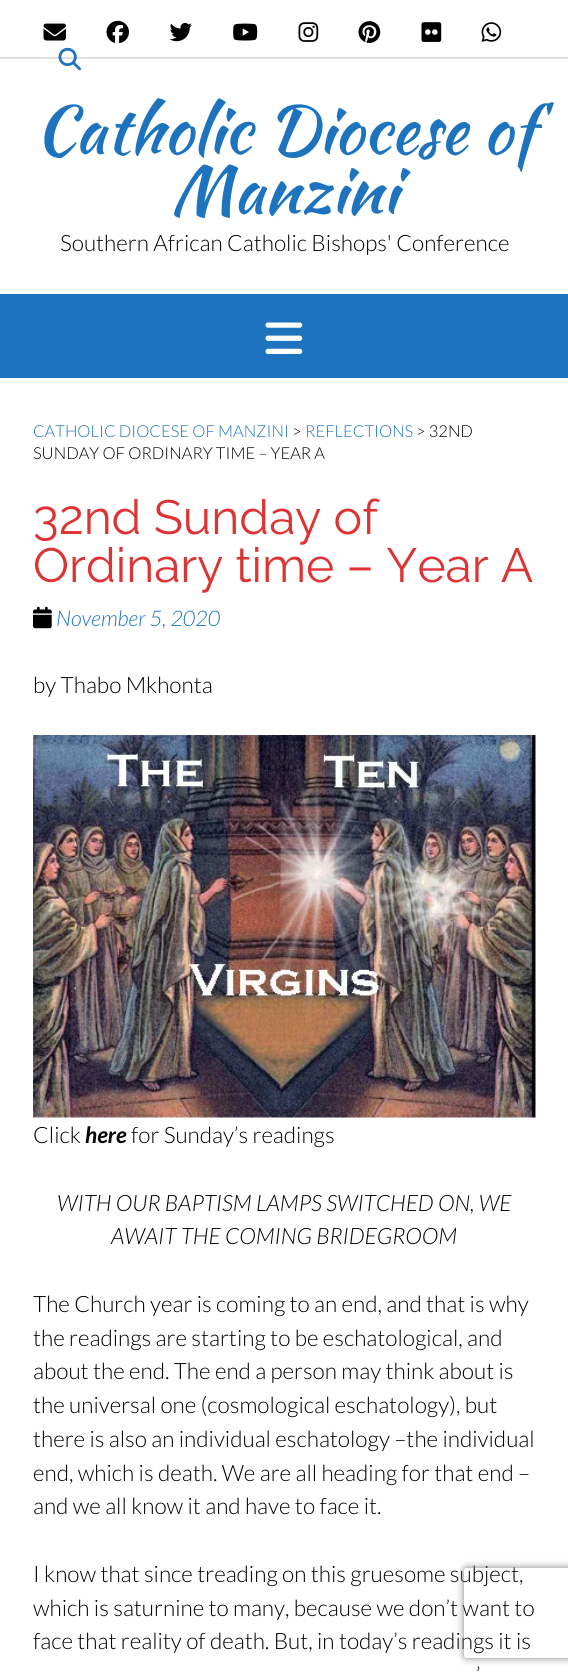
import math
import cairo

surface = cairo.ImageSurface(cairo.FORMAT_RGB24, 568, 1678)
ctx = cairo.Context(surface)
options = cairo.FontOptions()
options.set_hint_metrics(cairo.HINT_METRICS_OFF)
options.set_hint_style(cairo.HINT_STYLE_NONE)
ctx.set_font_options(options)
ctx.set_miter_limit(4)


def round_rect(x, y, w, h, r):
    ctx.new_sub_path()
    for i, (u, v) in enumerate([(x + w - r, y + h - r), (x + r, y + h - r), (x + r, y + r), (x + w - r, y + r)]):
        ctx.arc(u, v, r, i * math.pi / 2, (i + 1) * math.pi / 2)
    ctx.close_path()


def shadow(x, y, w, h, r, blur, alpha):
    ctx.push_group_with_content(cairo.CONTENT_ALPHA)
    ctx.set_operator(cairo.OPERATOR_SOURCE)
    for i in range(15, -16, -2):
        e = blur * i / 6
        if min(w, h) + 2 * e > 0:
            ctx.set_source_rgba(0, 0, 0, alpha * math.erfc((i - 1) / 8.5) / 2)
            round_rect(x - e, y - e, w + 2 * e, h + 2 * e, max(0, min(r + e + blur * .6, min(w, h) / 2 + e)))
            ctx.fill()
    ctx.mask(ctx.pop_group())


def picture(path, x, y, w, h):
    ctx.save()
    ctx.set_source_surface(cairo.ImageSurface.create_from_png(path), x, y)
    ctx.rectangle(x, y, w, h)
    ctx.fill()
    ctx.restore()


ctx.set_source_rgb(1, 1, 1)
ctx.paint()
ctx.set_source_rgb(0.878, 0.878, 0.878)
ctx.rectangle(0, 57, 568, 2)
ctx.fill()
picture("img1.png", 43, 23, 23, 18)
picture("img2.png", 106, 20, 23, 24)
picture("img3.png", 169, 22, 23, 20)
picture("img4.png", 233, 23, 25, 18)
picture("img5.png", 298, 22, 21, 20)
picture("img6.png", 358, 21, 23, 22)
picture("img7.png", 421, 22, 21, 20)
picture("img8.png", 481, 22, 21, 20)
picture("img9.png", 58, 47, 23, 24)
ctx.select_font_face("Kaushan Script")
ctx.set_font_size(66)
ctx.set_source_rgb(0.118, 0.451, 0.745)
ctx.move_to(35, 153)
ctx.show_text("Catholic Diocese of")
ctx.move_to(171, 213)
ctx.show_text("Manzini")
ctx.select_font_face("Lato Light")
ctx.set_font_size(22.5)
ctx.set_source_rgb(0, 0, 0)
ctx.move_to(60, 251)
ctx.show_text("Southern African Catholic Bishops' Conference")
ctx.set_source_rgb(0.118, 0.451, 0.745)
ctx.rectangle(0, 294, 568, 84)
ctx.fill()
picture("img10.png", 265, 322, 38, 32)
ctx.set_font_size(16.5)
ctx.move_to(33, 437)
ctx.show_text("CATHOLIC DIOCESE OF MANZINI")
ctx.set_source_rgb(0, 0, 0)
ctx.move_to(292, 437)
ctx.show_text(">")
ctx.set_source_rgb(0.118, 0.451, 0.745)
ctx.move_to(305, 437)
ctx.show_text("REFLECTIONS")
ctx.set_source_rgb(0, 0, 0)
ctx.move_to(416, 437)
ctx.show_text("> 32ND")
ctx.move_to(33, 459)
ctx.show_text("SUNDAY OF ORDINARY TIME – YEAR A")
ctx.select_font_face("Raleway")
ctx.set_font_size(48)
ctx.set_source_rgb(0.867, 0.2, 0.2)
ctx.move_to(33, 534)
ctx.show_text("32nd Sunday of")
ctx.move_to(33, 582)
ctx.show_text("Ordinary time – Year A")
picture("img11.png", 33, 606, 19, 23)
ctx.select_font_face("Lato Light", cairo.FONT_SLANT_ITALIC)
ctx.set_font_size(21.5)
ctx.set_source_rgb(0.118, 0.451, 0.745)
ctx.move_to(56, 626)
ctx.show_text("November 5, 2020")
ctx.select_font_face("Lato Light")
ctx.set_font_size(22.5)
ctx.set_source_rgb(0, 0, 0)
ctx.move_to(33, 693)
ctx.show_text("by Thabo Mkhonta")
picture("img12.png", 33, 735, 503, 383)
ctx.move_to(33, 1143)
ctx.show_text("Click")
ctx.select_font_face("Lato", cairo.FONT_SLANT_ITALIC, cairo.FONT_WEIGHT_BOLD)
ctx.move_to(85, 1143)
ctx.show_text("here")
ctx.select_font_face("Lato Light")
ctx.move_to(131, 1143)
ctx.show_text("for Sunday’s readings")
ctx.select_font_face("Lato Light", cairo.FONT_SLANT_ITALIC)
ctx.move_to(57, 1211)
ctx.show_text("WITH OUR BAPTISM LAMPS SWITCHED ON, WE")
ctx.move_to(111, 1244)
ctx.show_text("AWAIT THE COMING BRIDEGROOM")
ctx.select_font_face("Lato Light")
ctx.move_to(33, 1312)
ctx.show_text("The Church year is coming to an end, and that is why")
ctx.move_to(33, 1346)
ctx.show_text("the readings are starting to be eschatological, and")
ctx.move_to(33, 1379)
ctx.show_text("about the end. The end a person may think about is")
ctx.move_to(33, 1413)
ctx.show_text("the universal one (cosmological eschatology), but")
ctx.move_to(33, 1447)
ctx.show_text("there is also an individual eschatology –the individual")
ctx.move_to(33, 1481)
ctx.show_text("end, which is death. We are all heading for that end –")
ctx.move_to(33, 1514)
ctx.show_text("and we all know it and have to face it.")
ctx.move_to(33, 1582)
ctx.show_text("I know that since treading on this gruesome subject,")
ctx.move_to(33, 1616)
ctx.show_text("which is saturnine to many, because we don’t want to")
ctx.move_to(33, 1649)
ctx.show_text("face that reality of death. But, in today’s readings it is")
ctx.move_to(476, 1683)
ctx.show_text("’")
ctx.save()
ctx.set_fill_rule(cairo.FILL_RULE_EVEN_ODD)
ctx.new_path()
ctx.move_to(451, 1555)
ctx.line_to(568, 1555)
ctx.line_to(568, 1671)
ctx.line_to(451, 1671)
ctx.close_path()
ctx.move_to(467, 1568)
ctx.line_to(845, 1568)
ctx.curve_to(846.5, 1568, 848, 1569.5, 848, 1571)
ctx.line_to(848, 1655)
ctx.curve_to(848, 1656.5, 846.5, 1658, 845, 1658)
ctx.line_to(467, 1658)
ctx.curve_to(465.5, 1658, 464, 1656.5, 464, 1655)
ctx.line_to(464, 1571)
ctx.curve_to(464, 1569.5, 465.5, 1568, 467, 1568)
ctx.close_path()
ctx.clip()
ctx.set_source_rgb(0.502, 0.502, 0.502)
shadow(464, 1568, 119, 90, 3, 4, 1)
ctx.restore()
surface.write_to_png("page.png")
